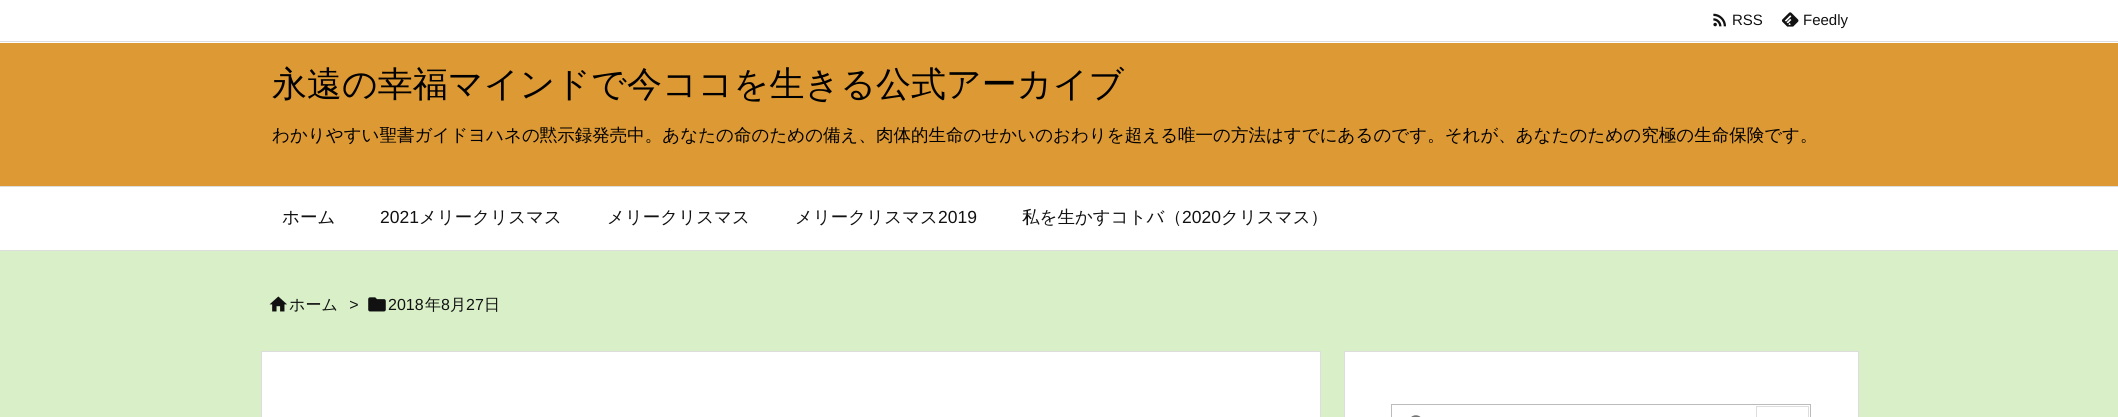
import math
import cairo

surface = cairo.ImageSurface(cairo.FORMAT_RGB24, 2118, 417)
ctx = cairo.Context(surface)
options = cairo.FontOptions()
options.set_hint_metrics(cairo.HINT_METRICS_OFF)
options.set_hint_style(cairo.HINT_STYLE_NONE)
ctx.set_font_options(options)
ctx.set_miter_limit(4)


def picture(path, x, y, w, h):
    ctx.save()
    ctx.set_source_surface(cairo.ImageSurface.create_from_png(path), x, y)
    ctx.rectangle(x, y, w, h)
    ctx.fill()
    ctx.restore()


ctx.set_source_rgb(0.847, 0.937, 0.784)
ctx.paint()
ctx.set_source_rgb(1, 1, 1)
ctx.rectangle(0, 0, 2118, 43)
ctx.fill()
ctx.set_source_rgb(0.867, 0.867, 0.867)
ctx.rectangle(0, 41, 2118, 1)
ctx.fill()
picture("img1.png", 1713, 13, 13, 14)
ctx.select_font_face("Liberation Sans")
ctx.set_font_size(15)
ctx.set_source_rgb(0.067, 0.067, 0.067)
ctx.move_to(1732, 25)
ctx.show_text("RSS")
picture("img2.png", 1781, 12, 18, 15)
ctx.move_to(1803, 25)
ctx.show_text("Feedly")
ctx.set_source_rgb(1, 1, 1)
ctx.rectangle(0, 187, 2118, 63)
ctx.fill()
ctx.set_source_rgb(0.867, 0.867, 0.867)
ctx.rectangle(0, 186, 2118, 1)
ctx.fill()
ctx.rectangle(0, 250, 2118, 1)
ctx.fill()
ctx.select_font_face("WenQuanYi Zen Hei Medium")
ctx.set_font_size(17.5)
ctx.set_source_rgb(0.067, 0.067, 0.067)
ctx.move_to(282, 223)
ctx.show_text("ホーム")
ctx.select_font_face("Liberation Sans")
ctx.move_to(380, 223)
ctx.show_text("2021")
ctx.select_font_face("WenQuanYi Zen Hei Medium")
ctx.move_to(419, 223)
ctx.show_text("メリークリスマス")
ctx.move_to(607, 223)
ctx.show_text("メリークリスマス")
ctx.move_to(795, 223)
ctx.show_text("メリークリスマス")
ctx.select_font_face("Liberation Sans")
ctx.move_to(938, 223)
ctx.show_text("2019")
ctx.select_font_face("WenQuanYi Zen Hei Medium")
ctx.move_to(1022, 223)
ctx.show_text("私を生かすコトバ（")
ctx.select_font_face("Liberation Sans")
ctx.move_to(1182, 223)
ctx.show_text("2020")
ctx.select_font_face("WenQuanYi Zen Hei Medium")
ctx.move_to(1221, 223)
ctx.show_text("クリスマス）")
ctx.set_source_rgb(0.867, 0.6, 0.2)
ctx.rectangle(0, 43, 2118, 143)
ctx.fill()
ctx.set_font_size(35)
ctx.set_source_rgb(0, 0, 0)
ctx.move_to(272, 96)
ctx.show_text("永遠の幸福マインドで今ココを生きる公式アーカイブ")
ctx.set_font_size(17.5)
ctx.move_to(272, 141)
ctx.show_text("わかりやすい聖書ガイドヨハネの黙示録発売中。あなたの命のための備え、肉体的生命のせかいのおわりを超える唯一の方法はすでにあるのです。それが、あなたのための究極の生命保険です。")
picture("img3.png", 269, 296, 18, 16)
ctx.set_font_size(16)
ctx.set_source_rgb(0.067, 0.067, 0.067)
ctx.move_to(289, 310)
ctx.show_text("ホーム")
ctx.select_font_face("Liberation Sans", cairo.FONT_SLANT_ITALIC)
ctx.move_to(349, 310)
ctx.show_text(">")
picture("img4.png", 368, 297, 18, 15)
ctx.select_font_face("Liberation Sans")
ctx.move_to(388, 310)
ctx.show_text("2018")
ctx.select_font_face("WenQuanYi Zen Hei Medium")
ctx.move_to(425, 310)
ctx.show_text("年")
ctx.select_font_face("Liberation Sans")
ctx.move_to(441, 310)
ctx.show_text("8")
ctx.select_font_face("WenQuanYi Zen Hei Medium")
ctx.move_to(450, 310)
ctx.show_text("月")
ctx.select_font_face("Liberation Sans")
ctx.move_to(466, 310)
ctx.show_text("27")
ctx.select_font_face("WenQuanYi Zen Hei Medium")
ctx.move_to(484, 310)
ctx.show_text("日")
ctx.set_source_rgb(1, 1, 1)
ctx.rectangle(261.5, 351.5, 1059, 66)
ctx.fill_preserve()
ctx.set_source_rgb(0.867, 0.867, 0.867)
ctx.set_line_width(1)
ctx.stroke()
ctx.set_source_rgb(1, 1, 1)
ctx.rectangle(1344.5, 351.5, 514, 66)
ctx.fill_preserve()
ctx.set_source_rgb(0.867, 0.867, 0.867)
ctx.stroke()
ctx.rectangle(1391.5, 404.5, 419, 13)
ctx.set_source_rgb(0.733, 0.733, 0.733)
ctx.stroke()
picture("img5.png", 1411, 415, 10, 2)
ctx.rectangle(1756.5, 406.5, 52, 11)
ctx.set_source_rgb(0.867, 0.867, 0.867)
ctx.stroke()
surface.write_to_png("page.png")
